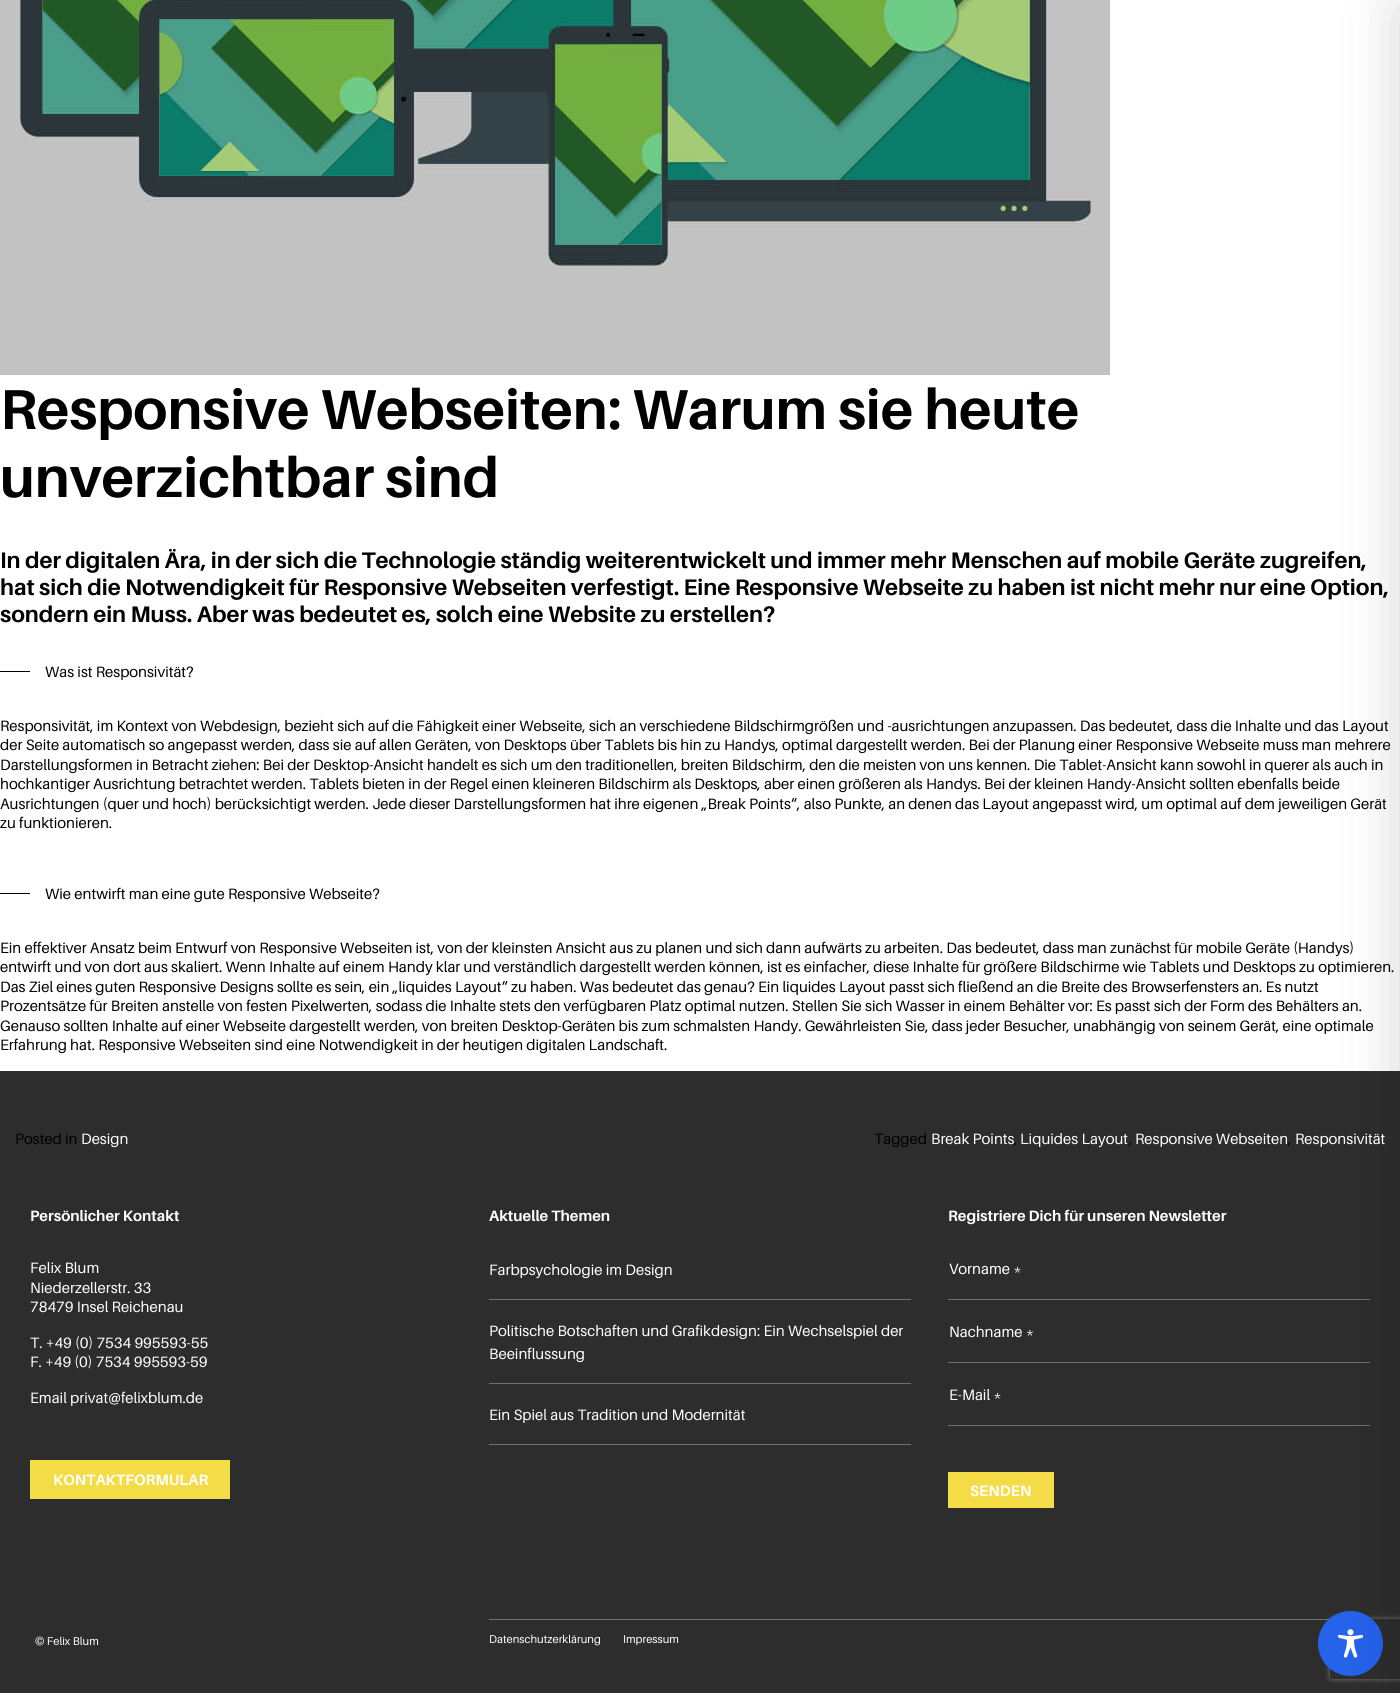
import math
import cairo

surface = cairo.ImageSurface(cairo.FORMAT_RGB24, 1400, 1693)
ctx = cairo.Context(surface)
options = cairo.FontOptions()
options.set_hint_metrics(cairo.HINT_METRICS_OFF)
options.set_hint_style(cairo.HINT_STYLE_NONE)
ctx.set_font_options(options)
ctx.set_miter_limit(4)


def round_rect(x, y, w, h, r):
    ctx.new_sub_path()
    for i, (u, v) in enumerate([(x + w - r, y + h - r), (x + r, y + h - r), (x + r, y + r), (x + w - r, y + r)]):
        ctx.arc(u, v, r, i * math.pi / 2, (i + 1) * math.pi / 2)
    ctx.close_path()


def shadow(x, y, w, h, r, blur, alpha):
    ctx.push_group_with_content(cairo.CONTENT_ALPHA)
    ctx.set_operator(cairo.OPERATOR_SOURCE)
    for i in range(15, -16, -2):
        e = blur * i / 6
        if min(w, h) + 2 * e > 0:
            ctx.set_source_rgba(0, 0, 0, alpha * math.erfc((i - 1) / 8.5) / 2)
            round_rect(x - e, y - e, w + 2 * e, h + 2 * e, max(0, min(r + e + blur * .6, min(w, h) / 2 + e)))
            ctx.fill()
    ctx.mask(ctx.pop_group())


def picture(path, x, y, w, h):
    ctx.save()
    ctx.set_source_surface(cairo.ImageSurface.create_from_png(path), x, y)
    ctx.rectangle(x, y, w, h)
    ctx.fill()
    ctx.restore()


ctx.set_source_rgb(1, 1, 1)
ctx.paint()
ctx.set_source_rgb(0.176, 0.176, 0.176)
ctx.rectangle(0, 1071, 1400, 622)
ctx.fill()
ctx.set_source_rgb(0.439, 0.439, 0.439)
ctx.rectangle(948, 1299, 422, 1)
ctx.fill()
ctx.rectangle(948, 1362, 422, 1)
ctx.fill()
ctx.rectangle(948, 1425, 422, 1)
ctx.fill()
ctx.rectangle(489, 1619, 841, 1)
ctx.fill()
ctx.save()
ctx.set_fill_rule(cairo.FILL_RULE_EVEN_ODD)
ctx.new_path()
ctx.move_to(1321, 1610)
ctx.line_to(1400, 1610)
ctx.line_to(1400, 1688)
ctx.line_to(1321, 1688)
ctx.close_path()
ctx.move_to(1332, 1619)
ctx.line_to(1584, 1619)
ctx.curve_to(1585, 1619, 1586, 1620, 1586, 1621)
ctx.line_to(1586, 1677)
ctx.curve_to(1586, 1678, 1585, 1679, 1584, 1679)
ctx.line_to(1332, 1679)
ctx.curve_to(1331, 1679, 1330, 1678, 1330, 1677)
ctx.line_to(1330, 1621)
ctx.curve_to(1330, 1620, 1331, 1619, 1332, 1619)
ctx.close_path()
ctx.clip()
ctx.set_source_rgb(0.502, 0.502, 0.502)
shadow(1330, 1619, 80, 60, 2, 2.5, 1)
ctx.restore()
ctx.set_source_rgb(0.145, 0.388, 0.922)
ctx.arc(1350.5, 1643.5, 32.5, 0, 2 * math.pi)
ctx.fill()
picture("img2.png", 1338, 1629, 25, 29)
ctx.set_source_rgb(0, 0, 0)
shadow(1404, 10, 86, 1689, 0, 30, 0.2)
picture("img1.png", 0, 0, 1110, 375)
ctx.select_font_face("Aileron", cairo.FONT_SLANT_NORMAL, cairo.FONT_WEIGHT_BOLD)
ctx.set_font_size(56.25)
ctx.set_source_rgb(0, 0, 0)
ctx.move_to(0, 429)
ctx.show_text("Responsive Webseiten: Warum sie heute")
ctx.move_to(0, 497)
ctx.show_text("unverzichtbar sind")
ctx.set_font_size(22.5)
ctx.move_to(0, 568)
ctx.show_text("In der digitalen Ära, in der sich die Technologie ständig weiterentwickelt und immer mehr Menschen auf mobile Geräte zugreifen,")
ctx.move_to(0, 595)
ctx.show_text("hat sich die Notwendigkeit für Responsive Webseiten verfestigt. Eine Responsive Webseite zu haben ist nicht mehr nur eine Option,")
ctx.move_to(0, 622)
ctx.show_text("sondern ein Muss. Aber was bedeutet es, solch eine Website zu erstellen?")
ctx.rectangle(0, 671, 30, 1)
ctx.fill()
ctx.select_font_face("Aileron")
ctx.set_font_size(15)
ctx.move_to(45, 677)
ctx.show_text("Was ist Responsivität?")
ctx.move_to(0, 731)
ctx.show_text("Responsivität, im Kontext von Webdesign, bezieht sich auf die Fähigkeit einer Webseite, sich an verschiedene Bildschirmgrößen und -ausrichtungen anzupassen. Das bedeutet, dass die Inhalte und das Layout")
ctx.move_to(0, 750)
ctx.show_text("der Seite automatisch so angepasst werden, dass sie auf allen Geräten, von Desktops über Tablets bis hin zu Handys, optimal dargestellt werden. Bei der Planung einer Responsive Webseite muss man mehrere")
ctx.move_to(0, 770)
ctx.show_text("Darstellungsformen in Betracht ziehen: Bei der Desktop-Ansicht handelt es sich um den traditionellen, breiten Bildschirm, den die meisten von uns kennen. Die Tablet-Ansicht kann sowohl in querer als auch in")
ctx.move_to(0, 789)
ctx.show_text("hochkantiger Ausrichtung betrachtet werden. Tablets bieten in der Regel einen kleineren Bildschirm als Desktops, aber einen größeren als Handys. Bei der kleinen Handy-Ansicht sollten ebenfalls beide")
ctx.move_to(0, 809)
ctx.show_text("Ausrichtungen (quer und hoch) berücksichtigt werden. Jede dieser Darstellungsformen hat ihre eigenen „Break Points“, also Punkte, an denen das Layout angepasst wird, um optimal auf dem jeweiligen Gerät")
ctx.move_to(0, 828)
ctx.show_text("zu funktionieren.")
ctx.rectangle(0, 893, 30, 1)
ctx.fill()
ctx.move_to(45, 899)
ctx.show_text("Wie entwirft man eine gute Responsive Webseite?")
ctx.move_to(0, 953)
ctx.show_text("Ein effektiver Ansatz beim Entwurf von Responsive Webseiten ist, von der kleinsten Ansicht aus zu planen und sich dann aufwärts zu arbeiten. Das bedeutet, dass man zunächst für mobile Geräte (Handys)")
ctx.move_to(0, 972)
ctx.show_text("entwirft und von dort aus skaliert. Wenn Inhalte auf einem Handy klar und verständlich dargestellt werden können, ist es einfacher, diese Inhalte für größere Bildschirme wie Tablets und Desktops zu optimieren.")
ctx.move_to(0, 992)
ctx.show_text("Das Ziel eines guten Responsive Designs sollte es sein, ein „liquides Layout“ zu haben. Was bedeutet das genau? Ein liquides Layout passt sich fließend an die Breite des Browserfensters an. Es nutzt")
ctx.move_to(0, 1011)
ctx.show_text("Prozentsätze für Breiten anstelle von festen Pixelwerten, sodass die Inhalte stets den verfügbaren Platz optimal nutzen. Stellen Sie sich Wasser in einem Behälter vor: Es passt sich der Form des Behälters an.")
ctx.move_to(0, 1031)
ctx.show_text("Genauso sollten Inhalte auf einer Webseite dargestellt werden, von breiten Desktop-Geräten bis zum schmalsten Handy. Gewährleisten Sie, dass jeder Besucher, unabhängig von seinem Gerät, eine optimale")
ctx.move_to(0, 1050)
ctx.show_text("Erfahrung hat. Responsive Webseiten sind eine Notwendigkeit in der heutigen digitalen Landschaft.")
ctx.move_to(15, 1144)
ctx.show_text("Posted in")
ctx.set_source_rgb(1, 1, 1)
ctx.move_to(81, 1144)
ctx.show_text("Design")
ctx.set_source_rgb(0, 0, 0)
ctx.move_to(874, 1144)
ctx.show_text("Tagged")
ctx.set_source_rgb(1, 1, 1)
ctx.move_to(931, 1144)
ctx.show_text("Break Points")
ctx.set_source_rgb(0, 0, 0)
ctx.move_to(1014, 1144)
ctx.show_text(",")
ctx.set_source_rgb(1, 1, 1)
ctx.move_to(1020, 1144)
ctx.show_text("Liquides Layout")
ctx.set_source_rgb(0, 0, 0)
ctx.move_to(1129, 1144)
ctx.show_text(",")
ctx.set_source_rgb(1, 1, 1)
ctx.move_to(1135, 1144)
ctx.show_text("Responsive Webseiten")
ctx.set_source_rgb(0, 0, 0)
ctx.move_to(1288, 1144)
ctx.show_text(",")
ctx.set_source_rgb(1, 1, 1)
ctx.move_to(1295, 1144)
ctx.show_text("Responsivität")
ctx.select_font_face("Aileron", cairo.FONT_SLANT_NORMAL, cairo.FONT_WEIGHT_BOLD)
ctx.move_to(30, 1221)
ctx.show_text("Persönlicher Kontakt")
ctx.select_font_face("Aileron")
ctx.move_to(30, 1273)
ctx.show_text("Felix Blum")
ctx.move_to(30, 1293)
ctx.show_text("Niederzellerstr. 33")
ctx.move_to(30, 1312)
ctx.show_text("78479 Insel Reichenau")
ctx.move_to(30, 1348)
ctx.show_text("T. +49 (0) 7534 995593-55")
ctx.move_to(30, 1367)
ctx.show_text("F. +49 (0) 7534 995593-59")
ctx.move_to(30, 1403)
ctx.show_text("Email privat@felixblum.de")
ctx.set_source_rgb(0.957, 0.863, 0.278)
ctx.rectangle(30, 1460, 200, 39)
ctx.fill()
ctx.select_font_face("Aileron", cairo.FONT_SLANT_NORMAL, cairo.FONT_WEIGHT_BOLD)
ctx.set_source_rgb(1, 1, 1)
ctx.move_to(53, 1485)
ctx.show_text("KONTAKTFORMULAR")
ctx.move_to(489, 1221)
ctx.show_text("Aktuelle Themen")
ctx.set_source_rgb(0.439, 0.439, 0.439)
ctx.rectangle(489, 1299, 422, 1)
ctx.fill()
ctx.select_font_face("Aileron")
ctx.set_source_rgb(1, 1, 1)
ctx.move_to(489, 1275)
ctx.show_text("Farbpsychologie im Design")
ctx.set_source_rgb(0.439, 0.439, 0.439)
ctx.rectangle(489, 1383, 422, 1)
ctx.fill()
ctx.set_source_rgb(1, 1, 1)
ctx.move_to(489, 1336)
ctx.show_text("Politische Botschaften und Grafikdesign: Ein Wechselspiel der")
ctx.move_to(489, 1359)
ctx.show_text("Beeinflussung")
ctx.set_source_rgb(0.439, 0.439, 0.439)
ctx.rectangle(489, 1444, 422, 1)
ctx.fill()
ctx.set_source_rgb(1, 1, 1)
ctx.move_to(489, 1420)
ctx.show_text("Ein Spiel aus Tradition und Modernität")
ctx.select_font_face("Aileron", cairo.FONT_SLANT_NORMAL, cairo.FONT_WEIGHT_BOLD)
ctx.move_to(948, 1221)
ctx.show_text("Registriere Dich für unseren Newsletter")
ctx.select_font_face("Aileron")
ctx.move_to(949, 1274)
ctx.show_text("Vorname *")
ctx.move_to(949, 1337)
ctx.show_text("Nachname *")
ctx.move_to(949, 1400)
ctx.show_text("E-Mail *")
ctx.set_source_rgb(0.957, 0.863, 0.278)
ctx.rectangle(948, 1472, 106, 36)
ctx.fill()
ctx.select_font_face("Aileron", cairo.FONT_SLANT_NORMAL, cairo.FONT_WEIGHT_BOLD)
ctx.set_source_rgb(1, 1, 1)
ctx.move_to(970, 1496)
ctx.show_text("SENDEN")
ctx.select_font_face("Aileron")
ctx.set_font_size(11.25)
ctx.move_to(35, 1645)
ctx.show_text("© Felix Blum")
ctx.move_to(489, 1643)
ctx.show_text("Datenschutzerklärung")
ctx.move_to(623, 1643)
ctx.show_text("Impressum")
surface.write_to_png("page.png")
